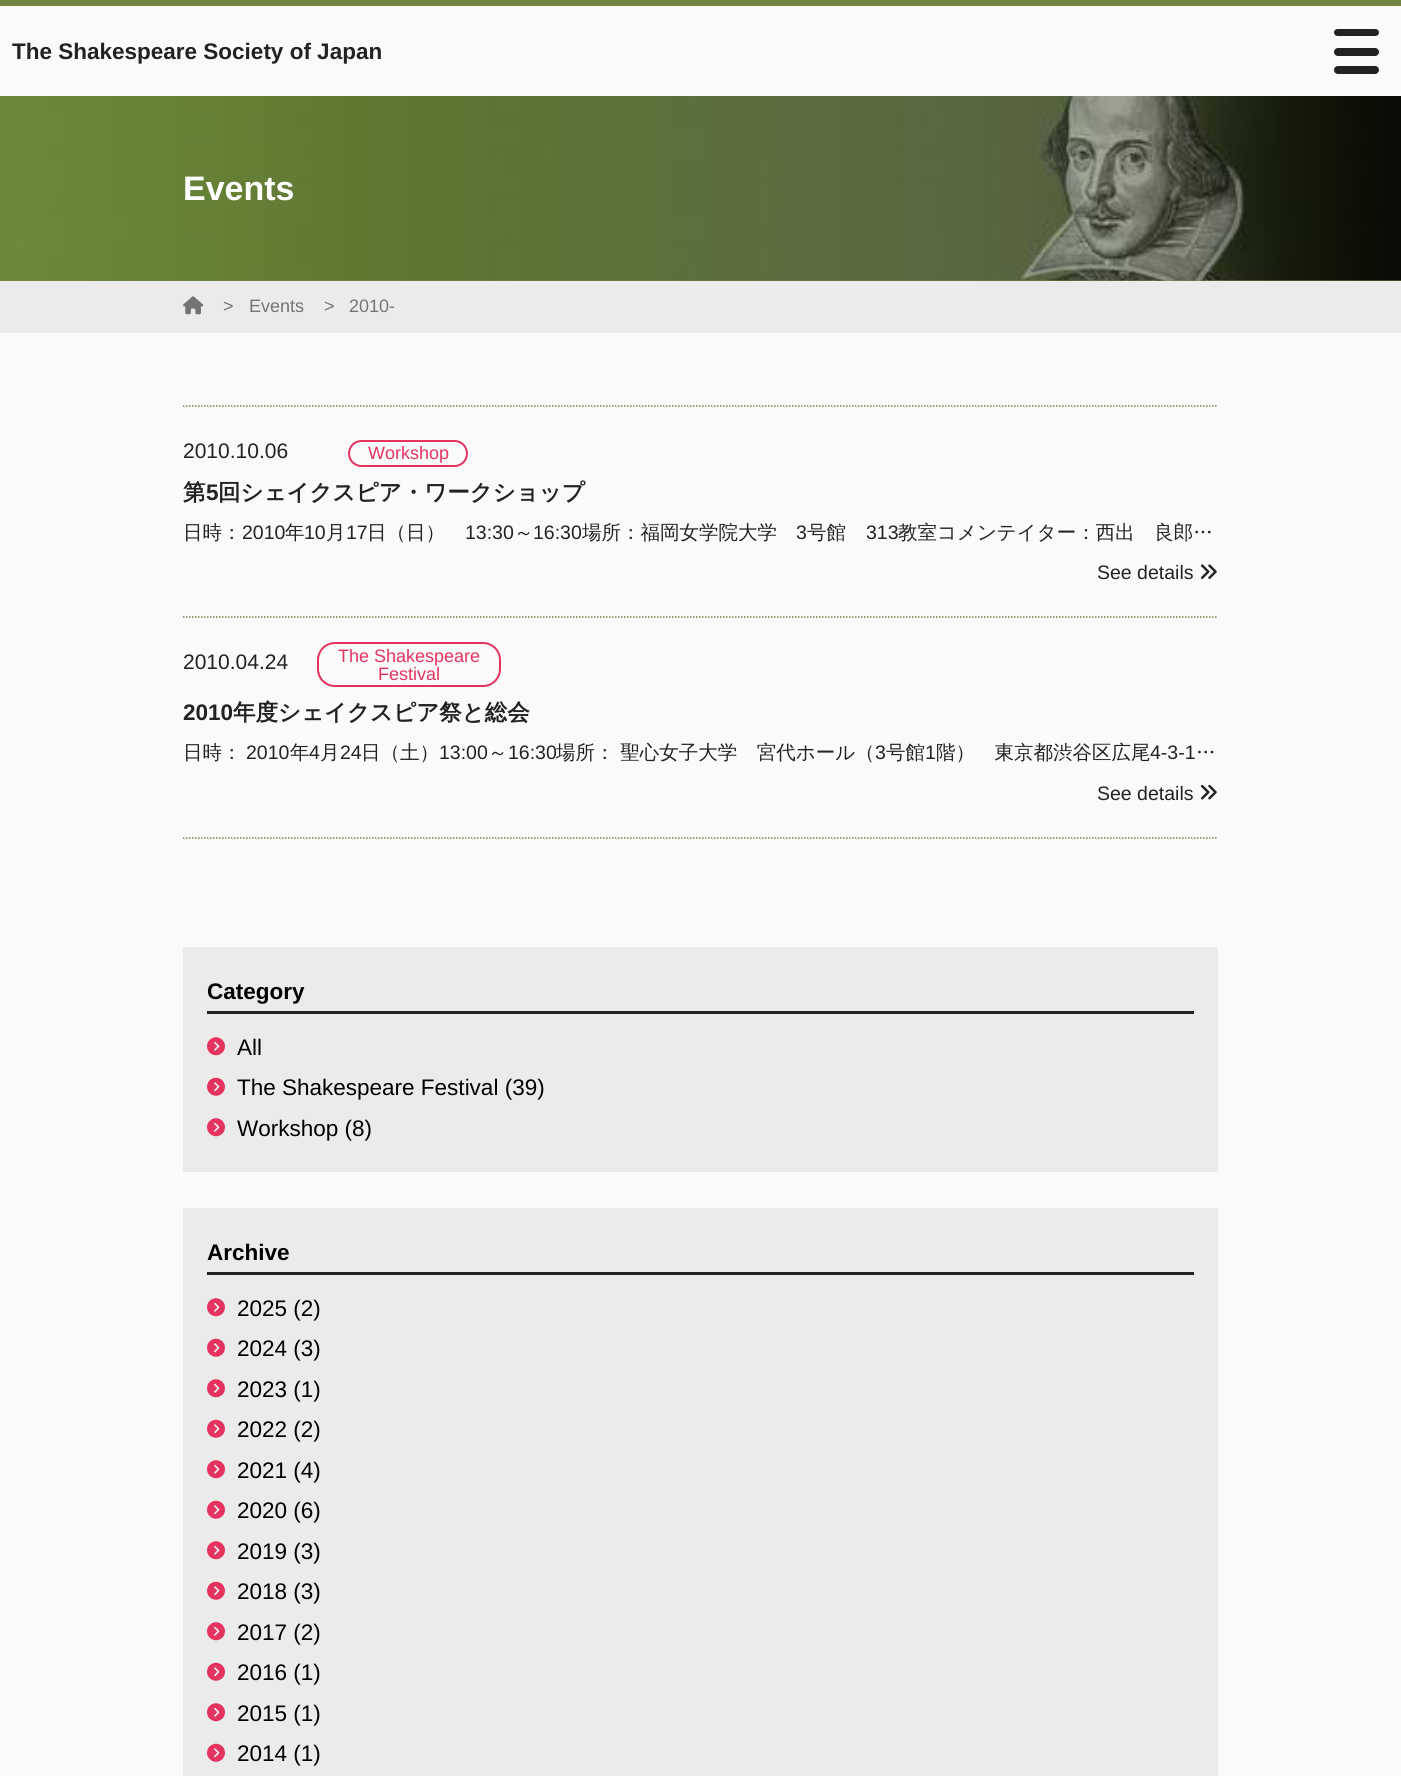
import math
import cairo

surface = cairo.ImageSurface(cairo.FORMAT_RGB24, 1401, 1776)
ctx = cairo.Context(surface)
options = cairo.FontOptions()
options.set_hint_metrics(cairo.HINT_METRICS_OFF)
options.set_hint_style(cairo.HINT_STYLE_NONE)
ctx.set_font_options(options)
ctx.set_miter_limit(4)


def round_rect(x, y, w, h, r):
    ctx.new_sub_path()
    for i, (u, v) in enumerate([(x + w - r, y + h - r), (x + r, y + h - r), (x + r, y + r), (x + w - r, y + r)]):
        ctx.arc(u, v, r, i * math.pi / 2, (i + 1) * math.pi / 2)
    ctx.close_path()


def picture(path, x, y, w, h):
    ctx.save()
    ctx.set_source_surface(cairo.ImageSurface.create_from_png(path), x, y)
    ctx.rectangle(x, y, w, h)
    ctx.fill()
    ctx.restore()


ctx.set_source_rgb(0.98, 0.98, 0.98)
ctx.paint()
ctx.set_source_rgb(0.447, 0.525, 0.259)
ctx.rectangle(0, 0, 1401, 6)
ctx.fill()
ctx.select_font_face("Liberation Sans", cairo.FONT_SLANT_NORMAL, cairo.FONT_WEIGHT_BOLD)
ctx.set_font_size(22.5)
ctx.set_source_rgb(0.133, 0.133, 0.133)
ctx.move_to(12, 59)
ctx.show_text("The Shakespeare Society of Japan")
round_rect(1334, 29, 45, 7, 3.5)
ctx.fill()
round_rect(1334, 48, 45, 8, 4)
ctx.fill()
round_rect(1334, 66, 45, 8, 4)
ctx.fill()
ctx.set_source_rgb(0.447, 0.525, 0.259)
ctx.rectangle(0, 280, 1401, 1)
ctx.fill()
picture("img1.png", 0, 96, 1401, 185)
ctx.set_font_size(34)
ctx.set_source_rgb(1, 1, 1)
ctx.move_to(183, 200)
ctx.show_text("Events")
ctx.set_source_rgb(0.925, 0.918, 0.918)
ctx.rectangle(0, 281, 1401, 52)
ctx.fill()
picture("img2.png", 183, 296, 21, 19)
ctx.select_font_face("Liberation Sans")
ctx.set_font_size(18)
ctx.set_source_rgb(0.455, 0.455, 0.455)
ctx.move_to(223, 312)
ctx.show_text(">")
ctx.move_to(249, 312)
ctx.show_text("Events")
ctx.move_to(324, 312)
ctx.show_text(">")
ctx.move_to(349, 312)
ctx.show_text("2010-")
ctx.new_path()
ctx.move_to(183, 406)
ctx.line_to(1218, 406)
ctx.set_source_rgb(0.447, 0.525, 0.259)
ctx.set_line_width(1.5)
ctx.set_dash([1.5, 1.5])
ctx.stroke()
ctx.set_font_size(21)
ctx.set_source_rgb(0.133, 0.133, 0.133)
ctx.move_to(183, 458)
ctx.show_text("2010.10.06")
round_rect(349, 441, 118, 25, 12.5)
ctx.set_source_rgb(0.894, 0.2, 0.373)
ctx.set_line_width(2)
ctx.set_dash([])
ctx.stroke()
ctx.set_font_size(18)
ctx.move_to(368, 459)
ctx.show_text("Workshop")
ctx.select_font_face("WenQuanYi Zen Hei", cairo.FONT_SLANT_NORMAL, cairo.FONT_WEIGHT_BOLD)
ctx.set_font_size(22.5)
ctx.set_source_rgb(0.133, 0.133, 0.133)
ctx.move_to(183, 500)
ctx.show_text("第")
ctx.select_font_face("Liberation Sans", cairo.FONT_SLANT_NORMAL, cairo.FONT_WEIGHT_BOLD)
ctx.move_to(206, 500)
ctx.show_text("5")
ctx.select_font_face("WenQuanYi Zen Hei", cairo.FONT_SLANT_NORMAL, cairo.FONT_WEIGHT_BOLD)
ctx.move_to(218, 500)
ctx.show_text("回シェイクスピア・ワークショップ")
ctx.select_font_face("WenQuanYi Zen Hei Medium")
ctx.set_font_size(19.5)
ctx.move_to(183, 539)
ctx.show_text("日時：")
ctx.select_font_face("Liberation Sans")
ctx.move_to(242, 539)
ctx.show_text("2010")
ctx.select_font_face("WenQuanYi Zen Hei Medium")
ctx.move_to(285, 539)
ctx.show_text("年")
ctx.select_font_face("Liberation Sans")
ctx.move_to(304, 539)
ctx.show_text("10")
ctx.select_font_face("WenQuanYi Zen Hei Medium")
ctx.move_to(326, 539)
ctx.show_text("月")
ctx.select_font_face("Liberation Sans")
ctx.move_to(346, 539)
ctx.show_text("17")
ctx.select_font_face("WenQuanYi Zen Hei Medium")
ctx.move_to(367, 539)
ctx.show_text("日（日）")
ctx.select_font_face("Liberation Sans")
ctx.move_to(465, 539)
ctx.show_text("13:30")
ctx.select_font_face("WenQuanYi Zen Hei Medium")
ctx.move_to(514, 539)
ctx.show_text("～")
ctx.select_font_face("Liberation Sans")
ctx.move_to(533, 539)
ctx.show_text("16:30")
ctx.select_font_face("WenQuanYi Zen Hei Medium")
ctx.move_to(582, 539)
ctx.show_text("場所：福岡女学院大学")
ctx.select_font_face("Liberation Sans")
ctx.move_to(796, 539)
ctx.show_text("3")
ctx.select_font_face("WenQuanYi Zen Hei Medium")
ctx.move_to(807, 539)
ctx.show_text("号館")
ctx.select_font_face("Liberation Sans")
ctx.move_to(866, 539)
ctx.show_text("313")
ctx.select_font_face("WenQuanYi Zen Hei Medium")
ctx.move_to(898, 539)
ctx.show_text("教室コメンテイター：西出　良郎…")
ctx.select_font_face("Liberation Sans")
ctx.move_to(1097, 579)
ctx.show_text("See details")
picture("img3.png", 1200, 564, 17, 15)
ctx.new_path()
ctx.move_to(183, 617)
ctx.line_to(1218, 617)
ctx.set_source_rgb(0.447, 0.525, 0.259)
ctx.set_line_width(1.5)
ctx.set_dash([1.5, 1.5])
ctx.stroke()
ctx.new_path()
ctx.move_to(183, 838)
ctx.line_to(1218, 838)
ctx.stroke()
ctx.set_font_size(21)
ctx.set_source_rgb(0.133, 0.133, 0.133)
ctx.move_to(183, 669)
ctx.show_text("2010.04.24")
round_rect(318, 643, 182, 43, 17)
ctx.set_source_rgb(0.894, 0.2, 0.373)
ctx.set_line_width(2)
ctx.set_dash([])
ctx.stroke()
ctx.set_font_size(18)
ctx.move_to(338, 662)
ctx.show_text("The Shakespeare")
ctx.move_to(378, 680)
ctx.show_text("Festival")
ctx.select_font_face("Liberation Sans", cairo.FONT_SLANT_NORMAL, cairo.FONT_WEIGHT_BOLD)
ctx.set_font_size(22.5)
ctx.set_source_rgb(0.133, 0.133, 0.133)
ctx.move_to(183, 720)
ctx.show_text("2010")
ctx.select_font_face("WenQuanYi Zen Hei", cairo.FONT_SLANT_NORMAL, cairo.FONT_WEIGHT_BOLD)
ctx.move_to(233, 720)
ctx.show_text("年度シェイクスピア祭と総会")
ctx.select_font_face("WenQuanYi Zen Hei Medium")
ctx.set_font_size(19.5)
ctx.move_to(183, 759)
ctx.show_text("日時：")
ctx.select_font_face("Liberation Sans")
ctx.move_to(246, 759)
ctx.show_text("2010")
ctx.select_font_face("WenQuanYi Zen Hei Medium")
ctx.move_to(290, 759)
ctx.show_text("年")
ctx.select_font_face("Liberation Sans")
ctx.move_to(309, 759)
ctx.show_text("4")
ctx.select_font_face("WenQuanYi Zen Hei Medium")
ctx.move_to(320, 759)
ctx.show_text("月")
ctx.select_font_face("Liberation Sans")
ctx.move_to(340, 759)
ctx.show_text("24")
ctx.select_font_face("WenQuanYi Zen Hei Medium")
ctx.move_to(361, 759)
ctx.show_text("日（土）")
ctx.select_font_face("Liberation Sans")
ctx.move_to(439, 759)
ctx.show_text("13:00")
ctx.select_font_face("WenQuanYi Zen Hei Medium")
ctx.move_to(488, 759)
ctx.show_text("～")
ctx.select_font_face("Liberation Sans")
ctx.move_to(508, 759)
ctx.show_text("16:30")
ctx.select_font_face("WenQuanYi Zen Hei Medium")
ctx.move_to(556, 759)
ctx.show_text("場所： 聖心女子大学　宮代ホール（")
ctx.select_font_face("Liberation Sans")
ctx.move_to(875, 759)
ctx.show_text("3")
ctx.select_font_face("WenQuanYi Zen Hei Medium")
ctx.move_to(886, 759)
ctx.show_text("号館")
ctx.select_font_face("Liberation Sans")
ctx.move_to(925, 759)
ctx.show_text("1")
ctx.select_font_face("WenQuanYi Zen Hei Medium")
ctx.move_to(936, 759)
ctx.show_text("階）　東京都渋谷区広尾")
ctx.select_font_face("Liberation Sans")
ctx.move_to(1150, 759)
ctx.show_text("4-3-1")
ctx.select_font_face("WenQuanYi Zen Hei Medium")
ctx.move_to(1196, 759)
ctx.show_text("…")
ctx.select_font_face("Liberation Sans")
ctx.move_to(1097, 800)
ctx.show_text("See details")
picture("img4.png", 1200, 784, 17, 16)
ctx.set_source_rgb(0.925, 0.918, 0.918)
ctx.rectangle(183, 947, 1035, 225)
ctx.fill()
ctx.set_source_rgb(0.133, 0.133, 0.133)
ctx.rectangle(207, 1011, 987, 3)
ctx.fill()
ctx.select_font_face("Liberation Sans", cairo.FONT_SLANT_NORMAL, cairo.FONT_WEIGHT_BOLD)
ctx.set_font_size(22.5)
ctx.set_source_rgb(0, 0, 0)
ctx.move_to(207, 999)
ctx.show_text("Category")
picture("img5.png", 207, 1037, 18, 19)
ctx.select_font_face("Liberation Sans")
ctx.move_to(237, 1055)
ctx.show_text("All")
picture("img6.png", 207, 1077, 18, 19)
ctx.move_to(237, 1095)
ctx.show_text("The Shakespeare Festival (39)")
picture("img5.png", 207, 1118, 18, 19)
ctx.move_to(237, 1136)
ctx.show_text("Workshop (8)")
ctx.set_source_rgb(0.925, 0.918, 0.918)
ctx.rectangle(183, 1208, 1035, 568)
ctx.fill()
ctx.set_source_rgb(0.133, 0.133, 0.133)
ctx.rectangle(207, 1272, 987, 3)
ctx.fill()
ctx.select_font_face("Liberation Sans", cairo.FONT_SLANT_NORMAL, cairo.FONT_WEIGHT_BOLD)
ctx.set_source_rgb(0, 0, 0)
ctx.move_to(207, 1260)
ctx.show_text("Archive")
picture("img5.png", 207, 1298, 18, 19)
ctx.select_font_face("Liberation Sans")
ctx.move_to(237, 1316)
ctx.show_text("2025 (2)")
picture("img6.png", 207, 1338, 18, 19)
ctx.move_to(237, 1356)
ctx.show_text("2024 (3)")
picture("img5.png", 207, 1379, 18, 19)
ctx.move_to(237, 1397)
ctx.show_text("2023 (1)")
picture("img6.png", 207, 1419, 18, 19)
ctx.move_to(237, 1437)
ctx.show_text("2022 (2)")
picture("img5.png", 207, 1460, 18, 19)
ctx.move_to(237, 1478)
ctx.show_text("2021 (4)")
picture("img6.png", 207, 1500, 18, 19)
ctx.move_to(237, 1518)
ctx.show_text("2020 (6)")
picture("img5.png", 207, 1541, 18, 19)
ctx.move_to(237, 1559)
ctx.show_text("2019 (3)")
picture("img6.png", 207, 1581, 18, 19)
ctx.move_to(237, 1599)
ctx.show_text("2018 (3)")
picture("img5.png", 207, 1622, 18, 19)
ctx.move_to(237, 1640)
ctx.show_text("2017 (2)")
picture("img6.png", 207, 1662, 18, 19)
ctx.move_to(237, 1680)
ctx.show_text("2016 (1)")
picture("img5.png", 207, 1703, 18, 19)
ctx.move_to(237, 1721)
ctx.show_text("2015 (1)")
picture("img6.png", 207, 1743, 18, 19)
ctx.move_to(237, 1761)
ctx.show_text("2014 (1)")
surface.write_to_png("page.png")
